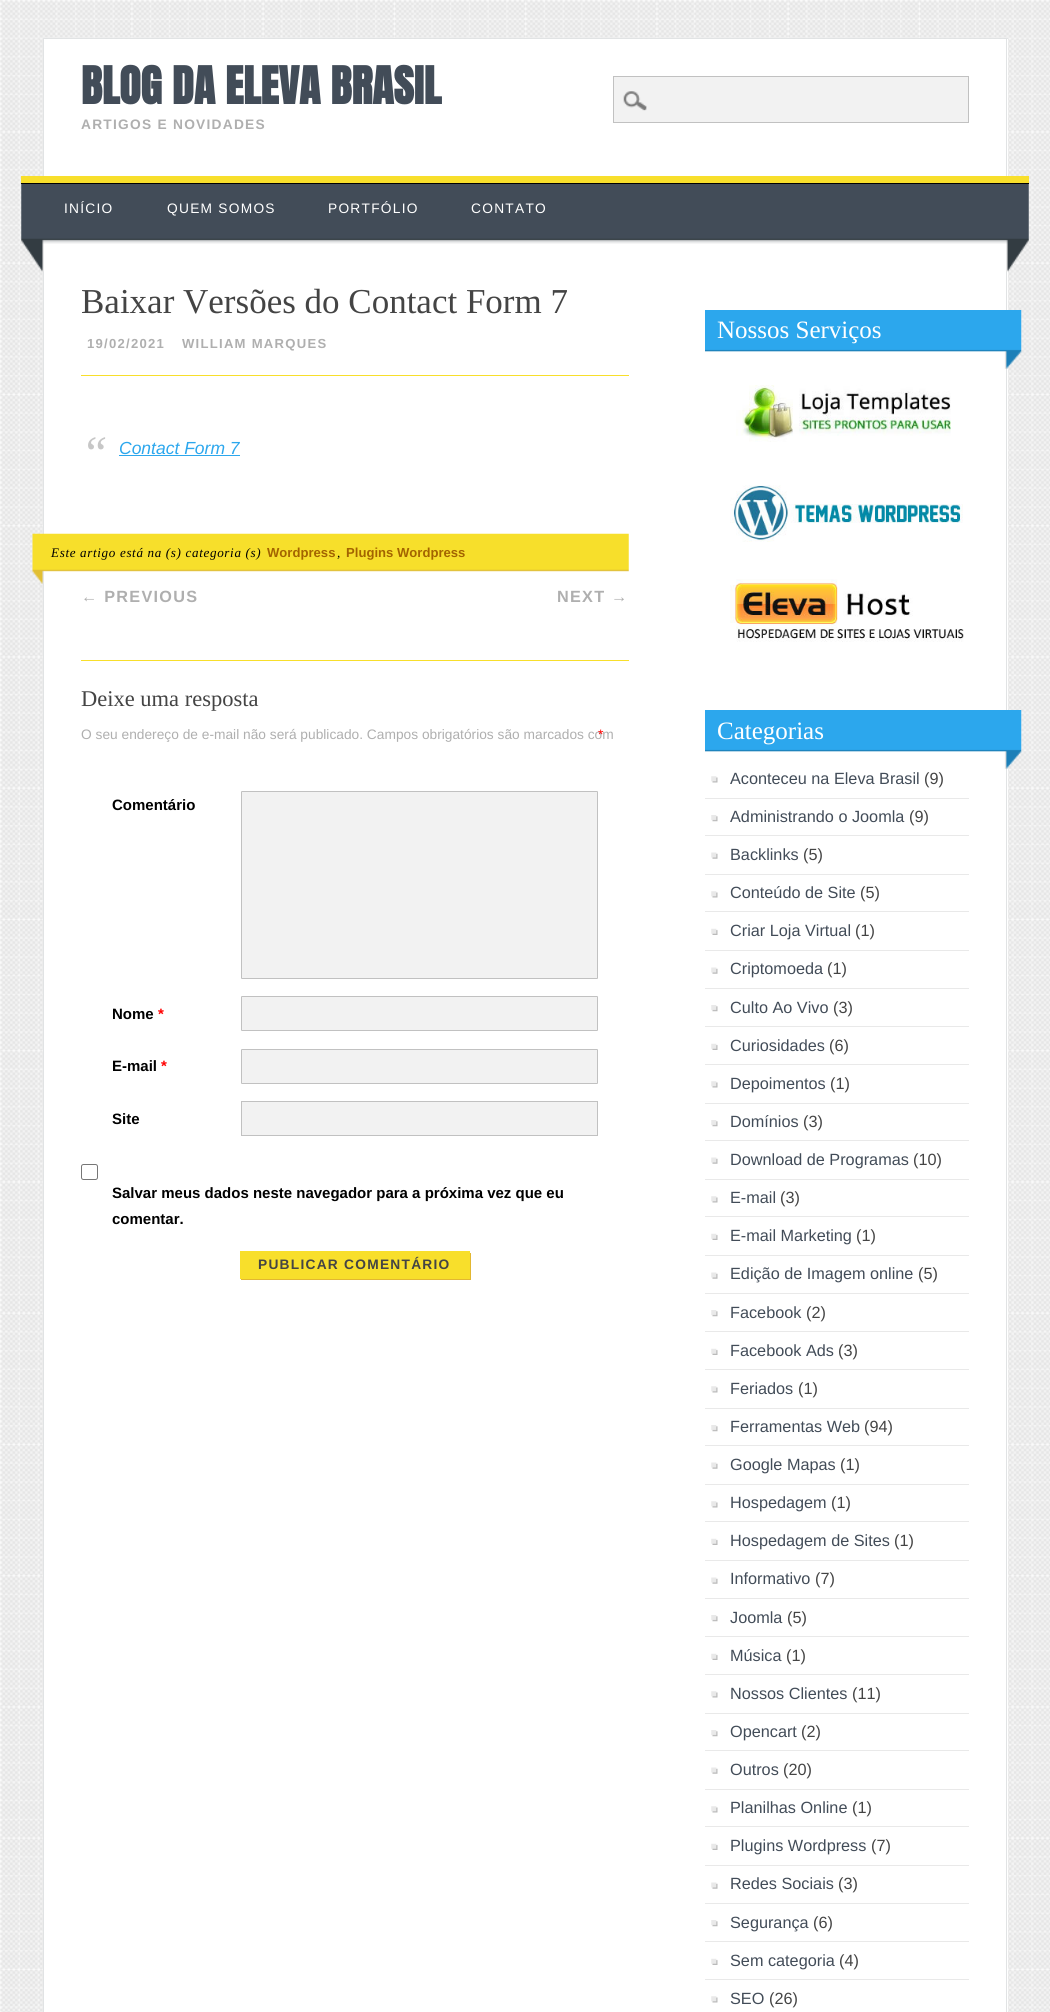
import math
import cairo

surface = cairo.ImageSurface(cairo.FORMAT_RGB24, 1050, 2012)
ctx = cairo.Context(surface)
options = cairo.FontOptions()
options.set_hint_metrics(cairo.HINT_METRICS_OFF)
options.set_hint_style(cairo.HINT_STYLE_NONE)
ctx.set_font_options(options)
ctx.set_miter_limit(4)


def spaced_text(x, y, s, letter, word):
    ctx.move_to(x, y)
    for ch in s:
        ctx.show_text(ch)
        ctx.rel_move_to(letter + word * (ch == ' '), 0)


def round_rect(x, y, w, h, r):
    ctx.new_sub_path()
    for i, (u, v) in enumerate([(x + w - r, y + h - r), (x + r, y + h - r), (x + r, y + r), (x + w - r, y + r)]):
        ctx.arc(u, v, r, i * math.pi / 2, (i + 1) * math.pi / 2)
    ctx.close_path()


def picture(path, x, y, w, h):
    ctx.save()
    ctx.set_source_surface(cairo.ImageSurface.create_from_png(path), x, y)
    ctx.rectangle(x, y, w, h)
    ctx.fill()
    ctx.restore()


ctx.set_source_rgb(1, 1, 1)
ctx.paint()
picture("img1.png", 0, 0, 1050, 2012)
ctx.set_source_rgb(0.882, 0.89, 0.894)
ctx.rectangle(43, 38, 965, 1)
ctx.fill()
ctx.set_source_rgb(1, 1, 1)
ctx.rectangle(44, 39, 964, 1973)
ctx.fill()
ctx.set_source_rgb(0.882, 0.89, 0.894)
ctx.rectangle(1006, 38, 1, 138)
ctx.fill()
ctx.rectangle(43, 38, 1, 138)
ctx.fill()
ctx.select_font_face("Anton", cairo.FONT_SLANT_NORMAL, cairo.FONT_WEIGHT_BOLD)
ctx.set_font_size(43.75)
ctx.set_source_rgb(0.259, 0.298, 0.345)
ctx.move_to(81, 104)
ctx.show_text("BLOG DA ELEVA BRASIL")
ctx.select_font_face("Liberation Sans", cairo.FONT_SLANT_NORMAL, cairo.FONT_WEIGHT_BOLD)
ctx.set_font_size(13.75)
ctx.set_source_rgb(0.686, 0.686, 0.686)
spaced_text(81, 129, "ARTIGOS E NOVIDADES", 1.25, 0)
ctx.set_source_rgb(0.882, 0.89, 0.894)
ctx.rectangle(1006, 271, 1, 1741)
ctx.fill()
ctx.rectangle(43, 271, 1, 1741)
ctx.fill()
picture("img2.png", 21, 184, 986, 88)
ctx.set_source_rgb(0.949, 0.949, 0.949)
ctx.rectangle(614, 77, 354, 45)
ctx.fill()
picture("img3.png", 623, 91, 24, 20)
ctx.rectangle(613.5, 76.5, 355, 46)
ctx.set_source_rgb(0.757, 0.757, 0.757)
ctx.set_line_width(1)
ctx.stroke()
picture("img4.png", 1005, 184, 24, 88)
ctx.set_source_rgb(0, 0, 0)
ctx.rectangle(21, 183, 1008, 1)
ctx.fill()
ctx.set_source_rgb(0.969, 0.875, 0.169)
ctx.rectangle(21, 176, 1008, 7)
ctx.fill()
ctx.select_font_face("Liberation Sans")
ctx.set_source_rgb(1, 1, 1)
spaced_text(64, 213, "INÍCIO", 1.25, 0)
spaced_text(167, 213, "QUEM SOMOS", 1.25, 0)
spaced_text(328, 213, "PORTFÓLIO", 1.25, 0)
spaced_text(471, 213, "CONTATO", 1.25, 0)
ctx.set_source_rgb(0.969, 0.875, 0.169)
ctx.rectangle(81, 375, 548, 1)
ctx.fill()
ctx.select_font_face("Liberation Serif")
ctx.set_font_size(35)
ctx.set_source_rgb(0.267, 0.267, 0.267)
ctx.move_to(81, 313)
ctx.show_text("Baixar Versões do Contact Form 7")
ctx.select_font_face("Liberation Sans", cairo.FONT_SLANT_NORMAL, cairo.FONT_WEIGHT_BOLD)
ctx.set_font_size(13.1)
ctx.set_source_rgb(0.686, 0.686, 0.686)
spaced_text(87, 348, "19/02/2021", 1.25, 0)
spaced_text(182, 348, "WILLIAM MARQUES", 1.25, 0)
ctx.select_font_face("Liberation Serif", cairo.FONT_SLANT_ITALIC)
ctx.set_font_size(48)
ctx.set_source_rgb(0.78, 0.78, 0.78)
ctx.move_to(81, 469)
ctx.show_text("“")
ctx.select_font_face("Liberation Sans", cairo.FONT_SLANT_ITALIC)
ctx.set_font_size(17.5)
ctx.set_source_rgb(0.173, 0.655, 0.929)
ctx.move_to(119, 454)
ctx.show_text("Contact Form 7")
ctx.rectangle(119, 455, 121, 1)
ctx.fill()
picture("img5.png", 32, 533, 597, 51)
ctx.select_font_face("Liberation Serif", cairo.FONT_SLANT_ITALIC)
ctx.set_font_size(13.1)
ctx.set_source_rgb(0, 0, 0)
spaced_text(51, 557, "Este artigo está na (s) categoria (s)", 0.65, 0)
ctx.select_font_face("Liberation Sans", cairo.FONT_SLANT_NORMAL, cairo.FONT_WEIGHT_BOLD)
ctx.set_source_rgb(0.639, 0.392, 0)
ctx.move_to(267, 557)
ctx.show_text("Wordpress")
ctx.select_font_face("Liberation Serif", cairo.FONT_SLANT_ITALIC)
ctx.set_source_rgb(0, 0, 0)
spaced_text(337, 557, ",", 0.65, 0)
ctx.select_font_face("Liberation Sans", cairo.FONT_SLANT_NORMAL, cairo.FONT_WEIGHT_BOLD)
ctx.set_source_rgb(0.639, 0.392, 0)
ctx.move_to(346, 557)
ctx.show_text("Plugins Wordpress")
ctx.set_font_size(16.25)
ctx.set_source_rgb(0.686, 0.686, 0.686)
spaced_text(81, 602, "← PREVIOUS", 1.25, 0)
spaced_text(557, 602, "NEXT →", 1.25, 0)
ctx.set_source_rgb(0.969, 0.875, 0.169)
ctx.rectangle(81, 660, 548, 1)
ctx.fill()
ctx.select_font_face("Liberation Serif")
ctx.set_font_size(22.5)
ctx.set_source_rgb(0.267, 0.267, 0.267)
ctx.move_to(81, 706)
ctx.show_text("Deixe uma resposta")
ctx.select_font_face("Liberation Sans")
ctx.set_font_size(13.75)
ctx.set_source_rgb(0.686, 0.686, 0.686)
ctx.move_to(81, 739)
ctx.show_text("O seu endereço de e-mail não será publicado. Campos obrigatórios são marcados com")
ctx.set_source_rgb(1, 0, 0)
ctx.move_to(598, 739)
ctx.show_text("*")
ctx.select_font_face("Liberation Sans", cairo.FONT_SLANT_NORMAL, cairo.FONT_WEIGHT_BOLD)
ctx.set_font_size(15)
ctx.set_source_rgb(0, 0, 0)
ctx.move_to(112, 810)
ctx.show_text("Comentário")
ctx.set_source_rgb(0.949, 0.949, 0.949)
round_rect(241.5, 791.5, 356, 187, 0.5)
ctx.fill_preserve()
ctx.set_source_rgb(0.757, 0.757, 0.757)
ctx.stroke()
ctx.set_source_rgb(0, 0, 0)
ctx.move_to(112, 1019)
ctx.show_text("Nome")
ctx.set_source_rgb(1, 0, 0)
ctx.move_to(158, 1019)
ctx.show_text("*")
ctx.set_source_rgb(0.949, 0.949, 0.949)
round_rect(241.5, 996.5, 356, 34, 0.5)
ctx.fill_preserve()
ctx.set_source_rgb(0.757, 0.757, 0.757)
ctx.stroke()
ctx.set_source_rgb(0, 0, 0)
ctx.move_to(112, 1071)
ctx.show_text("E-mail")
ctx.set_source_rgb(1, 0, 0)
ctx.move_to(161, 1071)
ctx.show_text("*")
ctx.set_source_rgb(0.949, 0.949, 0.949)
round_rect(241.5, 1049.5, 356, 34, 0.5)
ctx.fill_preserve()
ctx.set_source_rgb(0.757, 0.757, 0.757)
ctx.stroke()
ctx.set_source_rgb(0, 0, 0)
ctx.move_to(112, 1124)
ctx.show_text("Site")
ctx.set_source_rgb(0.949, 0.949, 0.949)
ctx.rectangle(241.5, 1101.5, 356, 34)
ctx.fill_preserve()
ctx.set_source_rgb(0.757, 0.757, 0.757)
ctx.stroke()
round_rect(81.5, 1164.5, 16, 15, 2)
ctx.set_source_rgb(0.463, 0.463, 0.463)
ctx.stroke()
ctx.set_source_rgb(0, 0, 0)
ctx.move_to(112, 1198)
ctx.show_text("Salvar meus dados neste navegador para a próxima vez que eu")
ctx.move_to(112, 1224)
ctx.show_text("comentar.")
ctx.set_source_rgb(0.886, 0.718, 0.196)
ctx.new_path()
ctx.move_to(241, 1279)
ctx.line_to(241, 1280)
ctx.line_to(471, 1280)
ctx.line_to(471, 1253)
ctx.line_to(470, 1253)
ctx.line_to(470, 1279)
ctx.close_path()
ctx.fill()
ctx.set_source_rgb(0.969, 0.875, 0.169)
ctx.rectangle(240, 1251, 230, 28)
ctx.fill()
ctx.set_font_size(13.75)
ctx.set_source_rgb(0.267, 0.267, 0.267)
spaced_text(258, 1269, "PUBLICAR COMENTÁRIO", 1.25, 0)
picture("img6.png", 705, 310, 317, 59)
ctx.select_font_face("Liberation Serif")
ctx.set_font_size(25)
ctx.set_source_rgb(1, 1, 1)
ctx.move_to(717, 338)
ctx.show_text("Nossos Serviços")
picture("img7.png", 736, 385, 215, 57)
picture("img8.png", 730, 485, 233, 57)
picture("img9.png", 730, 579, 234, 63)
picture("img10.png", 705, 710, 317, 59)
ctx.move_to(717, 739)
ctx.show_text("Categorias")
picture("img11.png", 711, 776, 7, 7)
ctx.select_font_face("Liberation Sans")
ctx.set_font_size(16.25)
ctx.set_source_rgb(0.259, 0.298, 0.345)
ctx.move_to(730, 784)
ctx.show_text("Aconteceu na Eleva Brasil")
ctx.set_source_rgb(0.267, 0.267, 0.267)
ctx.move_to(924, 784)
ctx.show_text("(9)")
picture("img12.png", 711, 815, 7, 7)
ctx.set_source_rgb(0.914, 0.914, 0.914)
ctx.rectangle(705, 798, 264, 1)
ctx.fill()
ctx.set_source_rgb(0.259, 0.298, 0.345)
ctx.move_to(730, 822)
ctx.show_text("Administrando o Joomla")
ctx.set_source_rgb(0.267, 0.267, 0.267)
ctx.move_to(909, 822)
ctx.show_text("(9)")
picture("img13.png", 711, 852, 7, 7)
ctx.set_source_rgb(0.914, 0.914, 0.914)
ctx.rectangle(705, 835, 264, 1)
ctx.fill()
ctx.set_source_rgb(0.259, 0.298, 0.345)
ctx.move_to(730, 860)
ctx.show_text("Backlinks")
ctx.set_source_rgb(0.267, 0.267, 0.267)
ctx.move_to(803, 860)
ctx.show_text("(5)")
picture("img11.png", 711, 891, 7, 7)
ctx.set_source_rgb(0.914, 0.914, 0.914)
ctx.rectangle(705, 874, 264, 1)
ctx.fill()
ctx.set_source_rgb(0.259, 0.298, 0.345)
ctx.move_to(730, 898)
ctx.show_text("Conteúdo de Site")
ctx.set_source_rgb(0.267, 0.267, 0.267)
ctx.move_to(860, 898)
ctx.show_text("(5)")
picture("img14.png", 711, 928, 7, 7)
ctx.set_source_rgb(0.914, 0.914, 0.914)
ctx.rectangle(705, 911, 264, 1)
ctx.fill()
ctx.set_source_rgb(0.259, 0.298, 0.345)
ctx.move_to(730, 936)
ctx.show_text("Criar Loja Virtual")
ctx.set_source_rgb(0.267, 0.267, 0.267)
ctx.move_to(855, 936)
ctx.show_text("(1)")
picture("img13.png", 711, 967, 7, 7)
ctx.set_source_rgb(0.914, 0.914, 0.914)
ctx.rectangle(705, 950, 264, 1)
ctx.fill()
ctx.set_source_rgb(0.259, 0.298, 0.345)
ctx.move_to(730, 974)
ctx.show_text("Criptomoeda")
ctx.set_source_rgb(0.267, 0.267, 0.267)
ctx.move_to(827, 974)
ctx.show_text("(1)")
picture("img12.png", 711, 1005, 7, 7)
ctx.set_source_rgb(0.914, 0.914, 0.914)
ctx.rectangle(705, 988, 264, 1)
ctx.fill()
ctx.set_source_rgb(0.259, 0.298, 0.345)
ctx.move_to(730, 1013)
ctx.show_text("Culto Ao Vivo")
ctx.set_source_rgb(0.267, 0.267, 0.267)
ctx.move_to(833, 1013)
ctx.show_text("(3)")
picture("img14.png", 711, 1043, 7, 7)
ctx.set_source_rgb(0.914, 0.914, 0.914)
ctx.rectangle(705, 1026, 264, 1)
ctx.fill()
ctx.set_source_rgb(0.259, 0.298, 0.345)
ctx.move_to(730, 1051)
ctx.show_text("Curiosidades")
ctx.set_source_rgb(0.267, 0.267, 0.267)
ctx.move_to(829, 1051)
ctx.show_text("(6)")
picture("img11.png", 711, 1081, 7, 7)
ctx.set_source_rgb(0.914, 0.914, 0.914)
ctx.rectangle(705, 1064, 264, 1)
ctx.fill()
ctx.set_source_rgb(0.259, 0.298, 0.345)
ctx.move_to(730, 1089)
ctx.show_text("Depoimentos")
ctx.set_source_rgb(0.267, 0.267, 0.267)
ctx.move_to(830, 1089)
ctx.show_text("(1)")
picture("img12.png", 711, 1120, 7, 7)
ctx.set_source_rgb(0.914, 0.914, 0.914)
ctx.rectangle(705, 1103, 264, 1)
ctx.fill()
ctx.set_source_rgb(0.259, 0.298, 0.345)
ctx.move_to(730, 1127)
ctx.show_text("Domínios")
ctx.set_source_rgb(0.267, 0.267, 0.267)
ctx.move_to(803, 1127)
ctx.show_text("(3)")
picture("img13.png", 711, 1157, 7, 7)
ctx.set_source_rgb(0.914, 0.914, 0.914)
ctx.rectangle(705, 1140, 264, 1)
ctx.fill()
ctx.set_source_rgb(0.259, 0.298, 0.345)
ctx.move_to(730, 1165)
ctx.show_text("Download de Programas")
ctx.set_source_rgb(0.267, 0.267, 0.267)
ctx.move_to(913, 1165)
ctx.show_text("(10)")
picture("img11.png", 711, 1196, 7, 7)
ctx.set_source_rgb(0.914, 0.914, 0.914)
ctx.rectangle(705, 1179, 264, 1)
ctx.fill()
ctx.set_source_rgb(0.259, 0.298, 0.345)
ctx.move_to(730, 1203)
ctx.show_text("E-mail")
ctx.set_source_rgb(0.267, 0.267, 0.267)
ctx.move_to(780, 1203)
ctx.show_text("(3)")
picture("img14.png", 711, 1233, 7, 7)
ctx.set_source_rgb(0.914, 0.914, 0.914)
ctx.rectangle(705, 1216, 264, 1)
ctx.fill()
ctx.set_source_rgb(0.259, 0.298, 0.345)
ctx.move_to(730, 1241)
ctx.show_text("E-mail Marketing")
ctx.set_source_rgb(0.267, 0.267, 0.267)
ctx.move_to(856, 1241)
ctx.show_text("(1)")
picture("img13.png", 711, 1272, 7, 7)
ctx.set_source_rgb(0.914, 0.914, 0.914)
ctx.rectangle(705, 1255, 264, 1)
ctx.fill()
ctx.set_source_rgb(0.259, 0.298, 0.345)
ctx.move_to(730, 1279)
ctx.show_text("Edição de Imagem online")
ctx.set_source_rgb(0.267, 0.267, 0.267)
ctx.move_to(918, 1279)
ctx.show_text("(5)")
picture("img12.png", 711, 1310, 7, 7)
ctx.set_source_rgb(0.914, 0.914, 0.914)
ctx.rectangle(705, 1293, 264, 1)
ctx.fill()
ctx.set_source_rgb(0.259, 0.298, 0.345)
ctx.move_to(730, 1318)
ctx.show_text("Facebook")
ctx.set_source_rgb(0.267, 0.267, 0.267)
ctx.move_to(806, 1318)
ctx.show_text("(2)")
picture("img14.png", 711, 1348, 7, 7)
ctx.set_source_rgb(0.914, 0.914, 0.914)
ctx.rectangle(705, 1331, 264, 1)
ctx.fill()
ctx.set_source_rgb(0.259, 0.298, 0.345)
ctx.move_to(730, 1356)
ctx.show_text("Facebook Ads")
ctx.set_source_rgb(0.267, 0.267, 0.267)
ctx.move_to(838, 1356)
ctx.show_text("(3)")
picture("img11.png", 711, 1386, 7, 7)
ctx.set_source_rgb(0.914, 0.914, 0.914)
ctx.rectangle(705, 1369, 264, 1)
ctx.fill()
ctx.set_source_rgb(0.259, 0.298, 0.345)
ctx.move_to(730, 1394)
ctx.show_text("Feriados")
ctx.set_source_rgb(0.267, 0.267, 0.267)
ctx.move_to(798, 1394)
ctx.show_text("(1)")
picture("img12.png", 711, 1425, 7, 7)
ctx.set_source_rgb(0.914, 0.914, 0.914)
ctx.rectangle(705, 1408, 264, 1)
ctx.fill()
ctx.set_source_rgb(0.259, 0.298, 0.345)
ctx.move_to(730, 1432)
ctx.show_text("Ferramentas Web")
ctx.set_source_rgb(0.267, 0.267, 0.267)
ctx.move_to(864, 1432)
ctx.show_text("(94)")
picture("img13.png", 711, 1462, 7, 7)
ctx.set_source_rgb(0.914, 0.914, 0.914)
ctx.rectangle(705, 1445, 264, 1)
ctx.fill()
ctx.set_source_rgb(0.259, 0.298, 0.345)
ctx.move_to(730, 1470)
ctx.show_text("Google Mapas")
ctx.set_source_rgb(0.267, 0.267, 0.267)
ctx.move_to(840, 1470)
ctx.show_text("(1)")
picture("img11.png", 711, 1501, 7, 7)
ctx.set_source_rgb(0.914, 0.914, 0.914)
ctx.rectangle(705, 1484, 264, 1)
ctx.fill()
ctx.set_source_rgb(0.259, 0.298, 0.345)
ctx.move_to(730, 1508)
ctx.show_text("Hospedagem")
ctx.set_source_rgb(0.267, 0.267, 0.267)
ctx.move_to(831, 1508)
ctx.show_text("(1)")
picture("img14.png", 711, 1538, 7, 7)
ctx.set_source_rgb(0.914, 0.914, 0.914)
ctx.rectangle(705, 1521, 264, 1)
ctx.fill()
ctx.set_source_rgb(0.259, 0.298, 0.345)
ctx.move_to(730, 1546)
ctx.show_text("Hospedagem de Sites")
ctx.set_source_rgb(0.267, 0.267, 0.267)
ctx.move_to(894, 1546)
ctx.show_text("(1)")
picture("img13.png", 711, 1577, 7, 7)
ctx.set_source_rgb(0.914, 0.914, 0.914)
ctx.rectangle(705, 1560, 264, 1)
ctx.fill()
ctx.set_source_rgb(0.259, 0.298, 0.345)
ctx.move_to(730, 1584)
ctx.show_text("Informativo")
ctx.set_source_rgb(0.267, 0.267, 0.267)
ctx.move_to(815, 1584)
ctx.show_text("(7)")
picture("img12.png", 711, 1615, 7, 7)
ctx.set_source_rgb(0.914, 0.914, 0.914)
ctx.rectangle(705, 1598, 264, 1)
ctx.fill()
ctx.set_source_rgb(0.259, 0.298, 0.345)
ctx.move_to(730, 1623)
ctx.show_text("Joomla")
ctx.set_source_rgb(0.267, 0.267, 0.267)
ctx.move_to(787, 1623)
ctx.show_text("(5)")
picture("img14.png", 711, 1653, 7, 7)
ctx.set_source_rgb(0.914, 0.914, 0.914)
ctx.rectangle(705, 1636, 264, 1)
ctx.fill()
ctx.set_source_rgb(0.259, 0.298, 0.345)
ctx.move_to(730, 1661)
ctx.show_text("Música")
ctx.set_source_rgb(0.267, 0.267, 0.267)
ctx.move_to(786, 1661)
ctx.show_text("(1)")
picture("img11.png", 711, 1691, 7, 7)
ctx.set_source_rgb(0.914, 0.914, 0.914)
ctx.rectangle(705, 1674, 264, 1)
ctx.fill()
ctx.set_source_rgb(0.259, 0.298, 0.345)
ctx.move_to(730, 1699)
ctx.show_text("Nossos Clientes")
ctx.set_source_rgb(0.267, 0.267, 0.267)
ctx.move_to(852, 1699)
ctx.show_text("(11)")
picture("img12.png", 711, 1730, 7, 7)
ctx.set_source_rgb(0.914, 0.914, 0.914)
ctx.rectangle(705, 1713, 264, 1)
ctx.fill()
ctx.set_source_rgb(0.259, 0.298, 0.345)
ctx.move_to(730, 1737)
ctx.show_text("Opencart")
ctx.set_source_rgb(0.267, 0.267, 0.267)
ctx.move_to(801, 1737)
ctx.show_text("(2)")
picture("img13.png", 711, 1767, 7, 7)
ctx.set_source_rgb(0.914, 0.914, 0.914)
ctx.rectangle(705, 1750, 264, 1)
ctx.fill()
ctx.set_source_rgb(0.259, 0.298, 0.345)
ctx.move_to(730, 1775)
ctx.show_text("Outros")
ctx.set_source_rgb(0.267, 0.267, 0.267)
ctx.move_to(783, 1775)
ctx.show_text("(20)")
picture("img11.png", 711, 1806, 7, 7)
ctx.set_source_rgb(0.914, 0.914, 0.914)
ctx.rectangle(705, 1789, 264, 1)
ctx.fill()
ctx.set_source_rgb(0.259, 0.298, 0.345)
ctx.move_to(730, 1813)
ctx.show_text("Planilhas Online")
ctx.set_source_rgb(0.267, 0.267, 0.267)
ctx.move_to(852, 1813)
ctx.show_text("(1)")
picture("img14.png", 711, 1843, 7, 7)
ctx.set_source_rgb(0.914, 0.914, 0.914)
ctx.rectangle(705, 1826, 264, 1)
ctx.fill()
ctx.set_source_rgb(0.259, 0.298, 0.345)
ctx.move_to(730, 1851)
ctx.show_text("Plugins Wordpress")
ctx.set_source_rgb(0.267, 0.267, 0.267)
ctx.move_to(871, 1851)
ctx.show_text("(7)")
picture("img13.png", 711, 1882, 7, 7)
ctx.set_source_rgb(0.914, 0.914, 0.914)
ctx.rectangle(705, 1865, 264, 1)
ctx.fill()
ctx.set_source_rgb(0.259, 0.298, 0.345)
ctx.move_to(730, 1889)
ctx.show_text("Redes Sociais")
ctx.set_source_rgb(0.267, 0.267, 0.267)
ctx.move_to(838, 1889)
ctx.show_text("(3)")
picture("img12.png", 711, 1920, 7, 7)
ctx.set_source_rgb(0.914, 0.914, 0.914)
ctx.rectangle(705, 1903, 264, 1)
ctx.fill()
ctx.set_source_rgb(0.259, 0.298, 0.345)
ctx.move_to(730, 1928)
ctx.show_text("Segurança")
ctx.set_source_rgb(0.267, 0.267, 0.267)
ctx.move_to(813, 1928)
ctx.show_text("(6)")
picture("img14.png", 711, 1958, 7, 7)
ctx.set_source_rgb(0.914, 0.914, 0.914)
ctx.rectangle(705, 1941, 264, 1)
ctx.fill()
ctx.set_source_rgb(0.259, 0.298, 0.345)
ctx.move_to(730, 1966)
ctx.show_text("Sem categoria")
ctx.set_source_rgb(0.267, 0.267, 0.267)
ctx.move_to(839, 1966)
ctx.show_text("(4)")
picture("img11.png", 711, 1996, 7, 7)
ctx.set_source_rgb(0.914, 0.914, 0.914)
ctx.rectangle(705, 1979, 264, 1)
ctx.fill()
ctx.set_source_rgb(0.259, 0.298, 0.345)
ctx.move_to(730, 2004)
ctx.show_text("SEO")
ctx.set_source_rgb(0.267, 0.267, 0.267)
ctx.move_to(769, 2004)
ctx.show_text("(26)")
surface.write_to_png("page.png")
